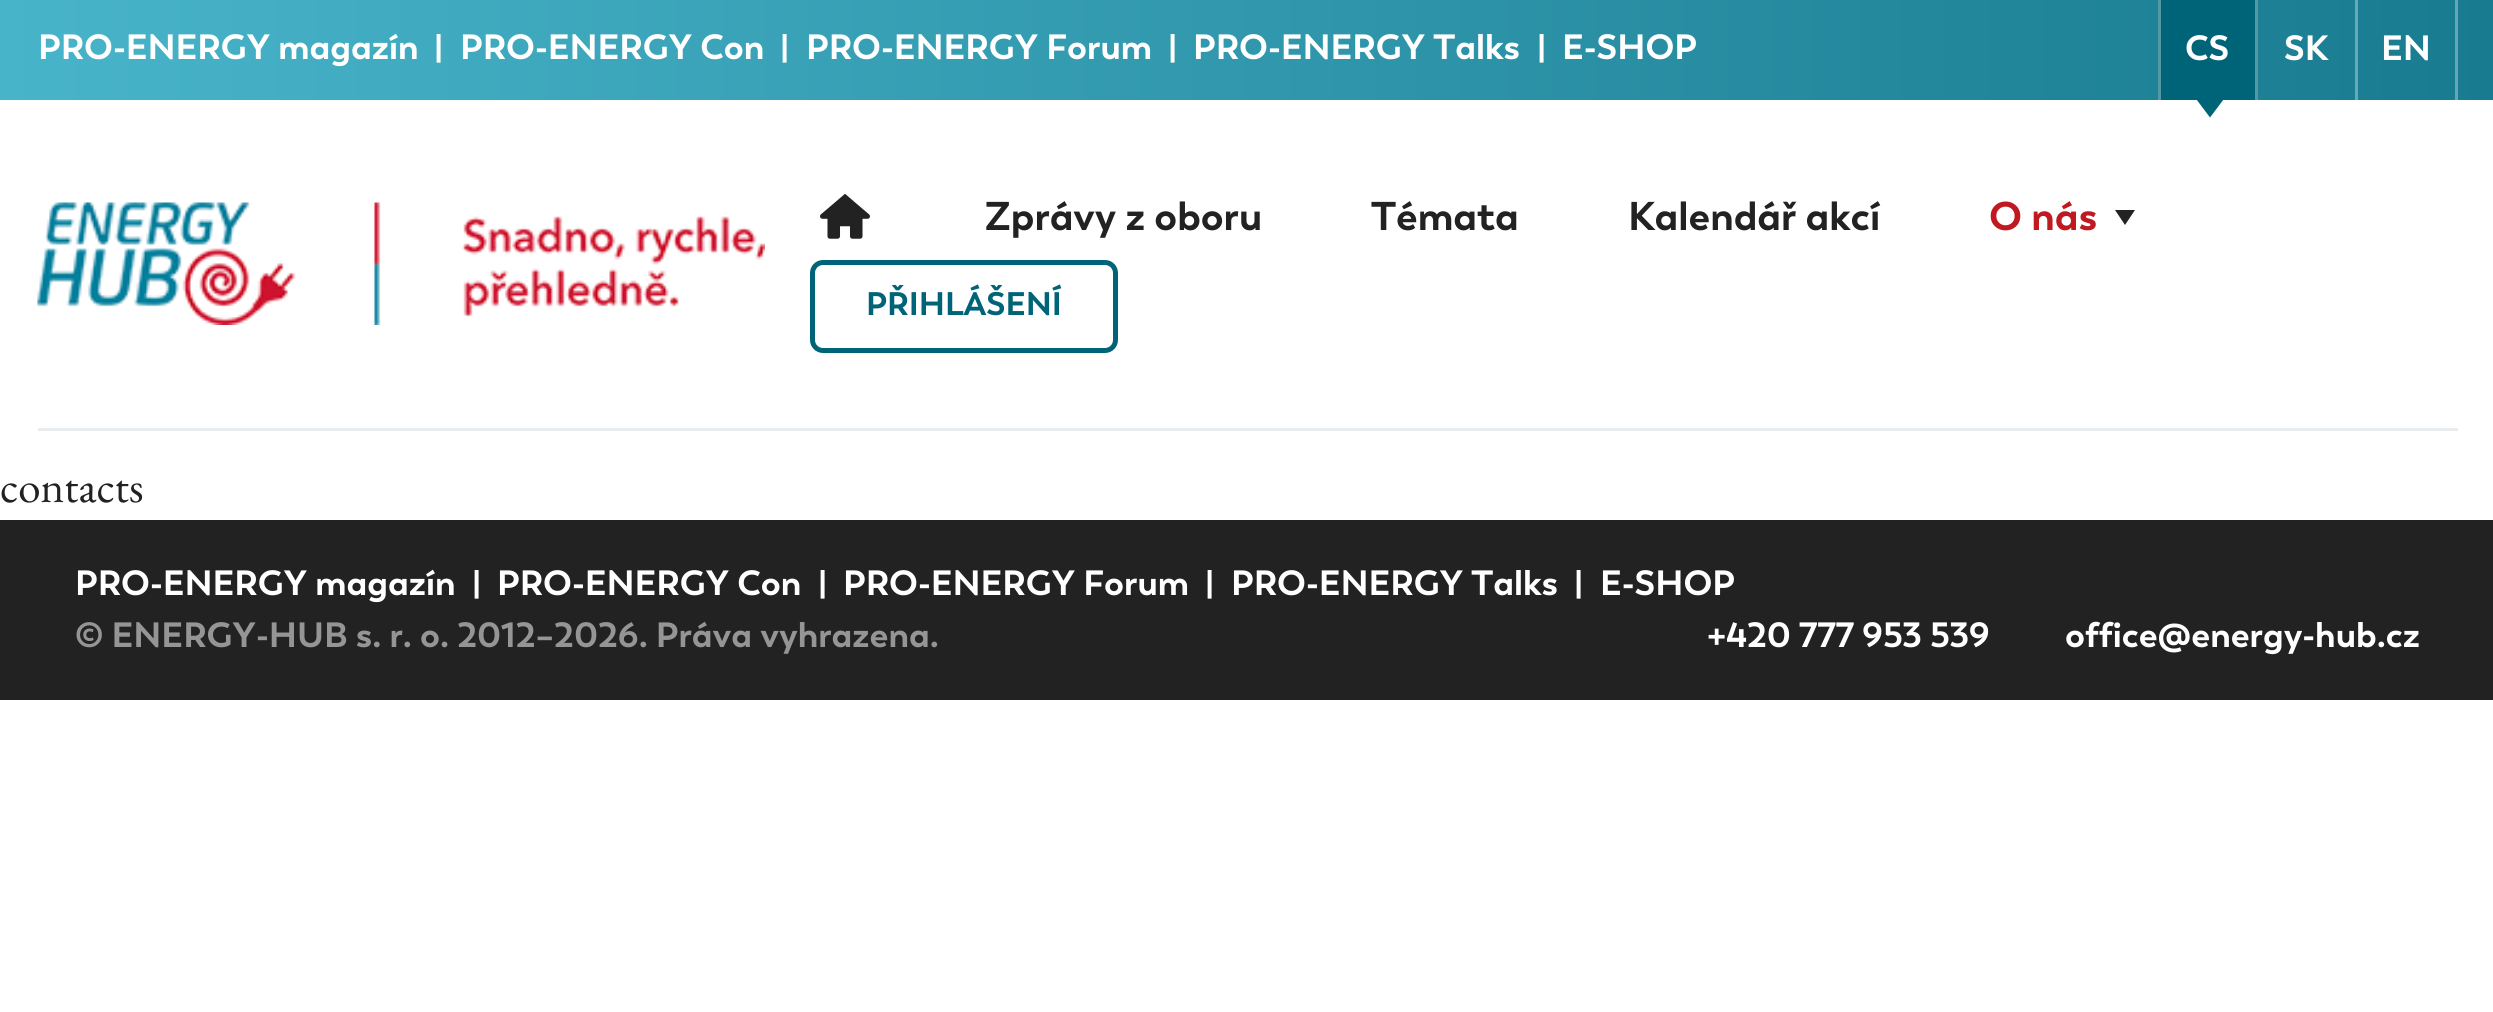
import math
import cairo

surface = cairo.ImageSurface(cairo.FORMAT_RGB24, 2493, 1012)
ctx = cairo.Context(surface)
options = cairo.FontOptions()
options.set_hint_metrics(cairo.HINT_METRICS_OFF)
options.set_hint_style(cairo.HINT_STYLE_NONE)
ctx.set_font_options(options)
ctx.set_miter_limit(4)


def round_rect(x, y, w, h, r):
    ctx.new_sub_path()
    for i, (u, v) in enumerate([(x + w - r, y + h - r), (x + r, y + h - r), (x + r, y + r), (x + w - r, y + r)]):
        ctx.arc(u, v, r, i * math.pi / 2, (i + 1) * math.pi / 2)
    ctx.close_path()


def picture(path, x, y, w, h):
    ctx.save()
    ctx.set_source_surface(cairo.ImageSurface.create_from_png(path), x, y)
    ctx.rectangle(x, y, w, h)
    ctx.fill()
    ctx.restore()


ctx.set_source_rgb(1, 1, 1)
ctx.paint()
gradient = cairo.LinearGradient(0, 50, 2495, 50)
gradient.add_color_stop_rgba(0, 0.282, 0.706, 0.792, 1)
gradient.add_color_stop_rgba(1, 0.098, 0.482, 0.561, 1)
ctx.set_source(gradient)
ctx.rectangle(0, 0, 2493, 100)
ctx.fill()
ctx.select_font_face("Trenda", cairo.FONT_SLANT_NORMAL, cairo.FONT_WEIGHT_BOLD)
ctx.set_font_size(35)
ctx.set_source_rgb(1, 1, 1)
ctx.move_to(38, 59)
ctx.show_text("PRO-ENERGY magazín")
ctx.move_to(434, 59)
ctx.show_text("|")
ctx.move_to(460, 59)
ctx.show_text("PRO-ENERGY Con")
ctx.move_to(780, 59)
ctx.show_text("|")
ctx.move_to(806, 59)
ctx.show_text("PRO-ENERGY Forum")
ctx.move_to(1168, 59)
ctx.show_text("|")
ctx.move_to(1193, 59)
ctx.show_text("PRO-ENERGY Talks")
ctx.move_to(1537, 59)
ctx.show_text("|")
ctx.move_to(1562, 59)
ctx.show_text("E-SHOP")
ctx.set_source_rgb(0, 0.392, 0.471)
ctx.rectangle(2161, 0, 94, 100)
ctx.fill()
ctx.set_source_rgb(0.329, 0.592, 0.647)
ctx.rectangle(2255, 0, 3, 100)
ctx.fill()
ctx.rectangle(2158, 0, 3, 100)
ctx.fill()
ctx.set_source_rgb(1, 1, 1)
ctx.move_to(2185, 60)
ctx.show_text("CS")
ctx.set_source_rgb(0, 0.392, 0.471)
ctx.new_path()
ctx.move_to(2195, 97.5)
ctx.line_to(2225, 97.5)
ctx.line_to(2210, 117.5)
ctx.close_path()
ctx.fill()
ctx.set_source_rgb(0.404, 0.663, 0.714)
ctx.rectangle(2355, 0, 3, 100)
ctx.fill()
ctx.set_source_rgb(1, 1, 1)
ctx.move_to(2284, 60)
ctx.show_text("SK")
ctx.set_source_rgb(0.4, 0.655, 0.71)
ctx.rectangle(2455, 0, 3, 100)
ctx.fill()
ctx.set_source_rgb(1, 1, 1)
ctx.move_to(2381, 60)
ctx.show_text("EN")
ctx.set_source_rgb(0.914, 0.925, 0.937)
ctx.rectangle(38, 428, 2420, 3)
ctx.fill()
picture("img1.png", 37, 202, 728, 123)
picture("img2.png", 820, 193, 50, 46)
ctx.set_font_size(40)
ctx.set_source_rgb(0.133, 0.133, 0.133)
ctx.move_to(985, 230)
ctx.show_text("Zprávy z oboru")
ctx.move_to(1371, 230)
ctx.show_text("Témata")
ctx.move_to(1628, 230)
ctx.show_text("Kalendář akcí")
ctx.set_source_rgb(0.753, 0.102, 0.125)
ctx.move_to(1989, 230)
ctx.show_text("O nás")
ctx.set_source_rgb(0.133, 0.133, 0.133)
ctx.new_path()
ctx.move_to(2115, 210)
ctx.line_to(2135, 210)
ctx.line_to(2125, 225)
ctx.close_path()
ctx.fill()
round_rect(812.5, 262.5, 303, 88, 10.5)
ctx.set_source_rgb(0, 0.392, 0.471)
ctx.set_line_width(5)
ctx.stroke()
ctx.set_font_size(32.5)
ctx.move_to(866, 315)
ctx.show_text("PŘIHLÁŠENÍ")
ctx.select_font_face("EB Garamond")
ctx.set_font_size(45)
ctx.set_source_rgb(0.133, 0.133, 0.133)
ctx.move_to(0, 502)
ctx.show_text("contacts")
ctx.rectangle(0, 520, 2493, 180)
ctx.fill()
ctx.select_font_face("Trenda", cairo.FONT_SLANT_NORMAL, cairo.FONT_WEIGHT_BOLD)
ctx.set_font_size(35)
ctx.set_source_rgb(1, 1, 1)
ctx.move_to(75, 595)
ctx.show_text("PRO-ENERGY magazín")
ctx.move_to(472, 595)
ctx.show_text("|")
ctx.move_to(497, 595)
ctx.show_text("PRO-ENERGY Con")
ctx.move_to(818, 595)
ctx.show_text("|")
ctx.move_to(843, 595)
ctx.show_text("PRO-ENERGY Forum")
ctx.move_to(1205, 595)
ctx.show_text("|")
ctx.move_to(1231, 595)
ctx.show_text("PRO-ENERGY Talks")
ctx.move_to(1574, 595)
ctx.show_text("|")
ctx.move_to(1600, 595)
ctx.show_text("E-SHOP")
ctx.set_source_rgb(0.584, 0.584, 0.584)
ctx.move_to(75, 647)
ctx.show_text("© ENERGY-HUB s. r. o. 2012–2026. Práva vyhrazena.")
ctx.set_source_rgb(1, 1, 1)
ctx.move_to(1707, 647)
ctx.show_text("+420 777 953 539")
ctx.move_to(2065, 647)
ctx.show_text("office@energy-hub.cz")
surface.write_to_png("page.png")
